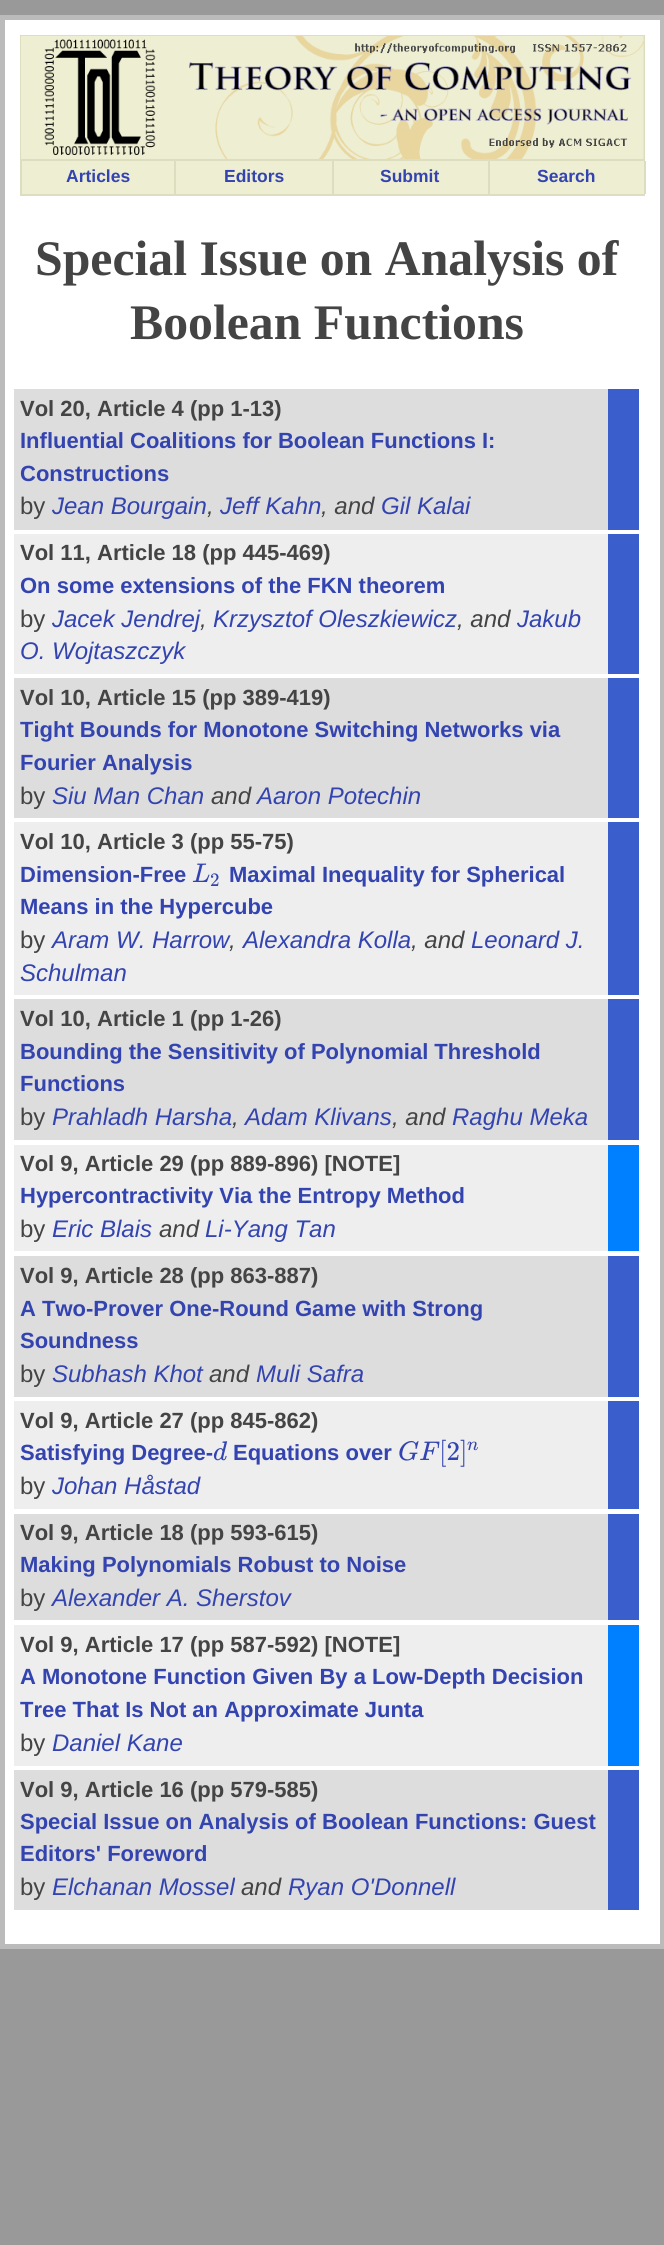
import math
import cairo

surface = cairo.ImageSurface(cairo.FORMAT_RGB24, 664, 2245)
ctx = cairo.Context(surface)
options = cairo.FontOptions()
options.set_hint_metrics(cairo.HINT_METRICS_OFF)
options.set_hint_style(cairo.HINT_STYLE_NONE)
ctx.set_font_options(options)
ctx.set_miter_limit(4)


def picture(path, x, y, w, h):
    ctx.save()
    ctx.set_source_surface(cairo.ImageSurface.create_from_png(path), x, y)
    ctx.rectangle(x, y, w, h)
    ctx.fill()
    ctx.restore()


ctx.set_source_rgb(0.6, 0.6, 0.6)
ctx.paint()
ctx.set_source_rgb(1, 1, 1)
ctx.rectangle(2.5, 17.5, 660, 1929)
ctx.fill_preserve()
ctx.set_source_rgb(0.733, 0.733, 0.733)
ctx.set_line_width(5)
ctx.stroke()
ctx.rectangle(21, 36, 623, 124)
ctx.set_source_rgb(0.867, 0.867, 0.753)
ctx.set_line_width(2)
ctx.stroke()
picture("img1.png", 21, 36, 623, 123)
ctx.set_source_rgb(0.933, 0.933, 0.824)
ctx.rectangle(22, 161, 622, 33)
ctx.fill()
ctx.set_source_rgb(0.867, 0.867, 0.753)
ctx.rectangle(20, 194, 625, 2)
ctx.fill()
ctx.rectangle(174, 161, 2, 33)
ctx.fill()
ctx.rectangle(20, 161, 2, 33)
ctx.fill()
ctx.select_font_face("Liberation Sans", cairo.FONT_SLANT_NORMAL, cairo.FONT_WEIGHT_BOLD)
ctx.set_font_size(17.5)
ctx.set_source_rgb(0.2, 0.267, 0.69)
ctx.move_to(66, 182)
ctx.show_text("Articles")
ctx.set_source_rgb(0.867, 0.867, 0.753)
ctx.rectangle(332, 161, 2, 33)
ctx.fill()
ctx.set_source_rgb(0.2, 0.267, 0.69)
ctx.move_to(224, 182)
ctx.show_text("Editors")
ctx.set_source_rgb(0.867, 0.867, 0.753)
ctx.rectangle(488, 161, 2, 33)
ctx.fill()
ctx.set_source_rgb(0.2, 0.267, 0.69)
ctx.move_to(380, 182)
ctx.show_text("Submit")
ctx.set_source_rgb(0.867, 0.867, 0.753)
ctx.rectangle(644, 161, 2, 33)
ctx.fill()
ctx.set_source_rgb(0.2, 0.267, 0.69)
ctx.move_to(537, 182)
ctx.show_text("Search")
ctx.select_font_face("Liberation Serif", cairo.FONT_SLANT_NORMAL, cairo.FONT_WEIGHT_BOLD)
ctx.set_font_size(49.75)
ctx.set_source_rgb(0.267, 0.267, 0.267)
ctx.move_to(35, 275)
ctx.show_text("Special Issue on Analysis of")
ctx.move_to(130, 339)
ctx.show_text("Boolean Functions")
ctx.set_source_rgb(0.867, 0.867, 0.867)
ctx.rectangle(14, 389, 594, 141)
ctx.fill()
ctx.select_font_face("Liberation Sans", cairo.FONT_SLANT_NORMAL, cairo.FONT_WEIGHT_BOLD)
ctx.set_font_size(22)
ctx.set_source_rgb(0.267, 0.267, 0.267)
ctx.move_to(20, 416)
ctx.show_text("Vol 20, Article 4 (pp 1-13)")
ctx.set_source_rgb(0.2, 0.267, 0.69)
ctx.move_to(20, 448)
ctx.show_text("Influential Coalitions for Boolean Functions I:")
ctx.move_to(20, 481)
ctx.show_text("Constructions")
ctx.select_font_face("Liberation Sans")
ctx.set_font_size(24)
ctx.set_source_rgb(0.267, 0.267, 0.267)
ctx.move_to(20, 514)
ctx.show_text("by")
ctx.select_font_face("Liberation Sans", cairo.FONT_SLANT_ITALIC)
ctx.set_source_rgb(0.2, 0.267, 0.69)
ctx.move_to(52, 514)
ctx.show_text("Jean Bourgain")
ctx.set_source_rgb(0.267, 0.267, 0.267)
ctx.move_to(207, 514)
ctx.show_text(",")
ctx.set_source_rgb(0.2, 0.267, 0.69)
ctx.move_to(220, 514)
ctx.show_text("Jeff Kahn")
ctx.set_source_rgb(0.267, 0.267, 0.267)
ctx.move_to(321, 514)
ctx.show_text(", and")
ctx.set_source_rgb(0.2, 0.267, 0.69)
ctx.move_to(381, 514)
ctx.show_text("Gil Kalai")
ctx.set_source_rgb(0.227, 0.373, 0.804)
ctx.rectangle(608, 389, 31, 141)
ctx.fill()
ctx.set_source_rgb(0.933, 0.933, 0.933)
ctx.rectangle(14, 534, 594, 140)
ctx.fill()
ctx.select_font_face("Liberation Sans", cairo.FONT_SLANT_NORMAL, cairo.FONT_WEIGHT_BOLD)
ctx.set_font_size(22)
ctx.set_source_rgb(0.267, 0.267, 0.267)
ctx.move_to(20, 560)
ctx.show_text("Vol 11, Article 18 (pp 445-469)")
ctx.set_source_rgb(0.2, 0.267, 0.69)
ctx.move_to(20, 593)
ctx.show_text("On some extensions of the FKN theorem")
ctx.select_font_face("Liberation Sans")
ctx.set_font_size(24)
ctx.set_source_rgb(0.267, 0.267, 0.267)
ctx.move_to(20, 627)
ctx.show_text("by")
ctx.select_font_face("Liberation Sans", cairo.FONT_SLANT_ITALIC)
ctx.set_source_rgb(0.2, 0.267, 0.69)
ctx.move_to(52, 627)
ctx.show_text("Jacek Jendrej")
ctx.set_source_rgb(0.267, 0.267, 0.267)
ctx.move_to(200, 627)
ctx.show_text(",")
ctx.set_source_rgb(0.2, 0.267, 0.69)
ctx.move_to(213, 627)
ctx.show_text("Krzysztof Oleszkiewicz")
ctx.set_source_rgb(0.267, 0.267, 0.267)
ctx.move_to(457, 627)
ctx.show_text(", and")
ctx.set_source_rgb(0.2, 0.267, 0.69)
ctx.move_to(517, 627)
ctx.show_text("Jakub")
ctx.move_to(20, 659)
ctx.show_text("O. Wojtaszczyk")
ctx.set_source_rgb(0.227, 0.373, 0.804)
ctx.rectangle(608, 534, 31, 140)
ctx.fill()
ctx.set_source_rgb(0.867, 0.867, 0.867)
ctx.rectangle(14, 678, 594, 140)
ctx.fill()
ctx.select_font_face("Liberation Sans", cairo.FONT_SLANT_NORMAL, cairo.FONT_WEIGHT_BOLD)
ctx.set_font_size(22)
ctx.set_source_rgb(0.267, 0.267, 0.267)
ctx.move_to(20, 705)
ctx.show_text("Vol 10, Article 15 (pp 389-419)")
ctx.set_source_rgb(0.2, 0.267, 0.69)
ctx.move_to(20, 737)
ctx.show_text("Tight Bounds for Monotone Switching Networks via")
ctx.move_to(20, 770)
ctx.show_text("Fourier Analysis")
ctx.select_font_face("Liberation Sans")
ctx.set_font_size(24)
ctx.set_source_rgb(0.267, 0.267, 0.267)
ctx.move_to(20, 804)
ctx.show_text("by")
ctx.select_font_face("Liberation Sans", cairo.FONT_SLANT_ITALIC)
ctx.set_source_rgb(0.2, 0.267, 0.69)
ctx.move_to(52, 804)
ctx.show_text("Siu Man Chan")
ctx.set_source_rgb(0.267, 0.267, 0.267)
ctx.move_to(211, 804)
ctx.show_text("and")
ctx.set_source_rgb(0.2, 0.267, 0.69)
ctx.move_to(257, 804)
ctx.show_text("Aaron Potechin")
ctx.set_source_rgb(0.227, 0.373, 0.804)
ctx.rectangle(608, 678, 31, 140)
ctx.fill()
ctx.set_source_rgb(0.933, 0.933, 0.933)
ctx.rectangle(14, 822, 594, 173)
ctx.fill()
ctx.select_font_face("Liberation Sans", cairo.FONT_SLANT_NORMAL, cairo.FONT_WEIGHT_BOLD)
ctx.set_font_size(22)
ctx.set_source_rgb(0.267, 0.267, 0.267)
ctx.move_to(20, 849)
ctx.show_text("Vol 10, Article 3 (pp 55-75)")
ctx.set_source_rgb(0.2, 0.267, 0.69)
ctx.move_to(20, 882)
ctx.show_text("Dimension-Free")
ctx.select_font_face("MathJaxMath", cairo.FONT_SLANT_ITALIC)
ctx.set_font_size(27)
ctx.move_to(192, 882)
ctx.show_text("L")
ctx.select_font_face("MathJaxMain")
ctx.set_font_size(19)
ctx.move_to(210, 886)
ctx.show_text("2")
ctx.select_font_face("Liberation Sans", cairo.FONT_SLANT_NORMAL, cairo.FONT_WEIGHT_BOLD)
ctx.set_font_size(22)
ctx.move_to(229, 882)
ctx.show_text("Maximal Inequality for Spherical")
ctx.move_to(20, 914)
ctx.show_text("Means in the Hypercube")
ctx.select_font_face("Liberation Sans")
ctx.set_font_size(24)
ctx.set_source_rgb(0.267, 0.267, 0.267)
ctx.move_to(20, 948)
ctx.show_text("by")
ctx.select_font_face("Liberation Sans", cairo.FONT_SLANT_ITALIC)
ctx.set_source_rgb(0.2, 0.267, 0.69)
ctx.move_to(52, 948)
ctx.show_text("Aram W. Harrow")
ctx.set_source_rgb(0.267, 0.267, 0.267)
ctx.move_to(229, 948)
ctx.show_text(",")
ctx.set_source_rgb(0.2, 0.267, 0.69)
ctx.move_to(243, 948)
ctx.show_text("Alexandra Kolla")
ctx.set_source_rgb(0.267, 0.267, 0.267)
ctx.move_to(411, 948)
ctx.show_text(", and")
ctx.set_source_rgb(0.2, 0.267, 0.69)
ctx.move_to(471, 948)
ctx.show_text("Leonard J.")
ctx.move_to(20, 981)
ctx.show_text("Schulman")
ctx.set_source_rgb(0.227, 0.373, 0.804)
ctx.rectangle(608, 822, 31, 173)
ctx.fill()
ctx.set_source_rgb(0.867, 0.867, 0.867)
ctx.rectangle(14, 999, 594, 141)
ctx.fill()
ctx.select_font_face("Liberation Sans", cairo.FONT_SLANT_NORMAL, cairo.FONT_WEIGHT_BOLD)
ctx.set_font_size(22)
ctx.set_source_rgb(0.267, 0.267, 0.267)
ctx.move_to(20, 1026)
ctx.show_text("Vol 10, Article 1 (pp 1-26)")
ctx.set_source_rgb(0.2, 0.267, 0.69)
ctx.move_to(20, 1059)
ctx.show_text("Bounding the Sensitivity of Polynomial Threshold")
ctx.move_to(20, 1091)
ctx.show_text("Functions")
ctx.select_font_face("Liberation Sans")
ctx.set_font_size(24)
ctx.set_source_rgb(0.267, 0.267, 0.267)
ctx.move_to(20, 1125)
ctx.show_text("by")
ctx.select_font_face("Liberation Sans", cairo.FONT_SLANT_ITALIC)
ctx.set_source_rgb(0.2, 0.267, 0.69)
ctx.move_to(52, 1125)
ctx.show_text("Prahladh Harsha")
ctx.set_source_rgb(0.267, 0.267, 0.267)
ctx.move_to(232, 1125)
ctx.show_text(",")
ctx.set_source_rgb(0.2, 0.267, 0.69)
ctx.move_to(245, 1125)
ctx.show_text("Adam Klivans")
ctx.set_source_rgb(0.267, 0.267, 0.267)
ctx.move_to(392, 1125)
ctx.show_text(", and")
ctx.set_source_rgb(0.2, 0.267, 0.69)
ctx.move_to(452, 1125)
ctx.show_text("Raghu Meka")
ctx.set_source_rgb(0.227, 0.373, 0.804)
ctx.rectangle(608, 999, 31, 141)
ctx.fill()
ctx.set_source_rgb(0.933, 0.933, 0.933)
ctx.rectangle(14, 1145, 594, 106)
ctx.fill()
ctx.select_font_face("Liberation Sans", cairo.FONT_SLANT_NORMAL, cairo.FONT_WEIGHT_BOLD)
ctx.set_font_size(22)
ctx.set_source_rgb(0.267, 0.267, 0.267)
ctx.move_to(20, 1171)
ctx.show_text("Vol 9, Article 29 (pp 889-896) [NOTE]")
ctx.set_source_rgb(0.2, 0.267, 0.69)
ctx.move_to(20, 1203)
ctx.show_text("Hypercontractivity Via the Entropy Method")
ctx.select_font_face("Liberation Sans")
ctx.set_font_size(24)
ctx.set_source_rgb(0.267, 0.267, 0.267)
ctx.move_to(20, 1237)
ctx.show_text("by")
ctx.select_font_face("Liberation Sans", cairo.FONT_SLANT_ITALIC)
ctx.set_source_rgb(0.2, 0.267, 0.69)
ctx.move_to(52, 1237)
ctx.show_text("Eric Blais")
ctx.set_source_rgb(0.267, 0.267, 0.267)
ctx.move_to(159, 1237)
ctx.show_text("and")
ctx.set_source_rgb(0.2, 0.267, 0.69)
ctx.move_to(205, 1237)
ctx.show_text("Li-Yang Tan")
ctx.set_source_rgb(0, 0.498, 1)
ctx.rectangle(608, 1145, 31, 106)
ctx.fill()
ctx.set_source_rgb(0.867, 0.867, 0.867)
ctx.rectangle(14, 1256, 594, 141)
ctx.fill()
ctx.select_font_face("Liberation Sans", cairo.FONT_SLANT_NORMAL, cairo.FONT_WEIGHT_BOLD)
ctx.set_font_size(22)
ctx.set_source_rgb(0.267, 0.267, 0.267)
ctx.move_to(20, 1283)
ctx.show_text("Vol 9, Article 28 (pp 863-887)")
ctx.set_source_rgb(0.2, 0.267, 0.69)
ctx.move_to(20, 1316)
ctx.show_text("A Two-Prover One-Round Game with Strong")
ctx.move_to(20, 1348)
ctx.show_text("Soundness")
ctx.select_font_face("Liberation Sans")
ctx.set_font_size(24)
ctx.set_source_rgb(0.267, 0.267, 0.267)
ctx.move_to(20, 1382)
ctx.show_text("by")
ctx.select_font_face("Liberation Sans", cairo.FONT_SLANT_ITALIC)
ctx.set_source_rgb(0.2, 0.267, 0.69)
ctx.move_to(52, 1382)
ctx.show_text("Subhash Khot")
ctx.set_source_rgb(0.267, 0.267, 0.267)
ctx.move_to(209, 1382)
ctx.show_text("and")
ctx.set_source_rgb(0.2, 0.267, 0.69)
ctx.move_to(256, 1382)
ctx.show_text("Muli Safra")
ctx.set_source_rgb(0.227, 0.373, 0.804)
ctx.rectangle(608, 1256, 31, 141)
ctx.fill()
ctx.set_source_rgb(0.933, 0.933, 0.933)
ctx.rectangle(14, 1401, 594, 108)
ctx.fill()
ctx.select_font_face("Liberation Sans", cairo.FONT_SLANT_NORMAL, cairo.FONT_WEIGHT_BOLD)
ctx.set_font_size(22)
ctx.set_source_rgb(0.267, 0.267, 0.267)
ctx.move_to(20, 1428)
ctx.show_text("Vol 9, Article 27 (pp 845-862)")
ctx.set_source_rgb(0.2, 0.267, 0.69)
ctx.move_to(20, 1460)
ctx.show_text("Satisfying Degree-")
ctx.select_font_face("MathJaxMath", cairo.FONT_SLANT_ITALIC)
ctx.set_font_size(27)
ctx.move_to(213, 1460)
ctx.show_text("d")
ctx.select_font_face("Liberation Sans", cairo.FONT_SLANT_NORMAL, cairo.FONT_WEIGHT_BOLD)
ctx.set_font_size(22)
ctx.move_to(233, 1460)
ctx.show_text("Equations over")
ctx.select_font_face("MathJaxMath", cairo.FONT_SLANT_ITALIC)
ctx.set_font_size(27)
ctx.move_to(398, 1460)
ctx.show_text("GF")
ctx.select_font_face("MathJaxMain")
ctx.move_to(439, 1460)
ctx.show_text("[2]")
ctx.select_font_face("MathJaxMath", cairo.FONT_SLANT_ITALIC)
ctx.set_font_size(19)
ctx.move_to(467, 1450)
ctx.show_text("n")
ctx.select_font_face("Liberation Sans")
ctx.set_font_size(24)
ctx.set_source_rgb(0.267, 0.267, 0.267)
ctx.move_to(20, 1494)
ctx.show_text("by")
ctx.select_font_face("Liberation Sans", cairo.FONT_SLANT_ITALIC)
ctx.set_source_rgb(0.2, 0.267, 0.69)
ctx.move_to(52, 1494)
ctx.show_text("Johan Håstad")
ctx.set_source_rgb(0.227, 0.373, 0.804)
ctx.rectangle(608, 1401, 31, 108)
ctx.fill()
ctx.set_source_rgb(0.867, 0.867, 0.867)
ctx.rectangle(14, 1514, 594, 106)
ctx.fill()
ctx.select_font_face("Liberation Sans", cairo.FONT_SLANT_NORMAL, cairo.FONT_WEIGHT_BOLD)
ctx.set_font_size(22)
ctx.set_source_rgb(0.267, 0.267, 0.267)
ctx.move_to(20, 1540)
ctx.show_text("Vol 9, Article 18 (pp 593-615)")
ctx.set_source_rgb(0.2, 0.267, 0.69)
ctx.move_to(20, 1572)
ctx.show_text("Making Polynomials Robust to Noise")
ctx.select_font_face("Liberation Sans")
ctx.set_font_size(24)
ctx.set_source_rgb(0.267, 0.267, 0.267)
ctx.move_to(20, 1606)
ctx.show_text("by")
ctx.select_font_face("Liberation Sans", cairo.FONT_SLANT_ITALIC)
ctx.set_source_rgb(0.2, 0.267, 0.69)
ctx.move_to(52, 1606)
ctx.show_text("Alexander A. Sherstov")
ctx.set_source_rgb(0.227, 0.373, 0.804)
ctx.rectangle(608, 1514, 31, 106)
ctx.fill()
ctx.set_source_rgb(0.933, 0.933, 0.933)
ctx.rectangle(14, 1625, 594, 141)
ctx.fill()
ctx.select_font_face("Liberation Sans", cairo.FONT_SLANT_NORMAL, cairo.FONT_WEIGHT_BOLD)
ctx.set_font_size(22)
ctx.set_source_rgb(0.267, 0.267, 0.267)
ctx.move_to(20, 1652)
ctx.show_text("Vol 9, Article 17 (pp 587-592) [NOTE]")
ctx.set_source_rgb(0.2, 0.267, 0.69)
ctx.move_to(20, 1684)
ctx.show_text("A Monotone Function Given By a Low-Depth Decision")
ctx.move_to(20, 1717)
ctx.show_text("Tree That Is Not an Approximate Junta")
ctx.select_font_face("Liberation Sans")
ctx.set_font_size(24)
ctx.set_source_rgb(0.267, 0.267, 0.267)
ctx.move_to(20, 1751)
ctx.show_text("by")
ctx.select_font_face("Liberation Sans", cairo.FONT_SLANT_ITALIC)
ctx.set_source_rgb(0.2, 0.267, 0.69)
ctx.move_to(52, 1751)
ctx.show_text("Daniel Kane")
ctx.set_source_rgb(0, 0.498, 1)
ctx.rectangle(608, 1625, 31, 141)
ctx.fill()
ctx.set_source_rgb(0.867, 0.867, 0.867)
ctx.rectangle(14, 1770, 594, 140)
ctx.fill()
ctx.select_font_face("Liberation Sans", cairo.FONT_SLANT_NORMAL, cairo.FONT_WEIGHT_BOLD)
ctx.set_font_size(22)
ctx.set_source_rgb(0.267, 0.267, 0.267)
ctx.move_to(20, 1797)
ctx.show_text("Vol 9, Article 16 (pp 579-585)")
ctx.set_source_rgb(0.2, 0.267, 0.69)
ctx.move_to(20, 1829)
ctx.show_text("Special Issue on Analysis of Boolean Functions: Guest")
ctx.move_to(20, 1861)
ctx.show_text("Editors' Foreword")
ctx.select_font_face("Liberation Sans")
ctx.set_font_size(24)
ctx.set_source_rgb(0.267, 0.267, 0.267)
ctx.move_to(20, 1895)
ctx.show_text("by")
ctx.select_font_face("Liberation Sans", cairo.FONT_SLANT_ITALIC)
ctx.set_source_rgb(0.2, 0.267, 0.69)
ctx.move_to(52, 1895)
ctx.show_text("Elchanan Mossel")
ctx.set_source_rgb(0.267, 0.267, 0.267)
ctx.move_to(241, 1895)
ctx.show_text("and")
ctx.set_source_rgb(0.2, 0.267, 0.69)
ctx.move_to(288, 1895)
ctx.show_text("Ryan O'Donnell")
ctx.set_source_rgb(0.227, 0.373, 0.804)
ctx.rectangle(608, 1770, 31, 140)
ctx.fill()
surface.write_to_png("page.png")
